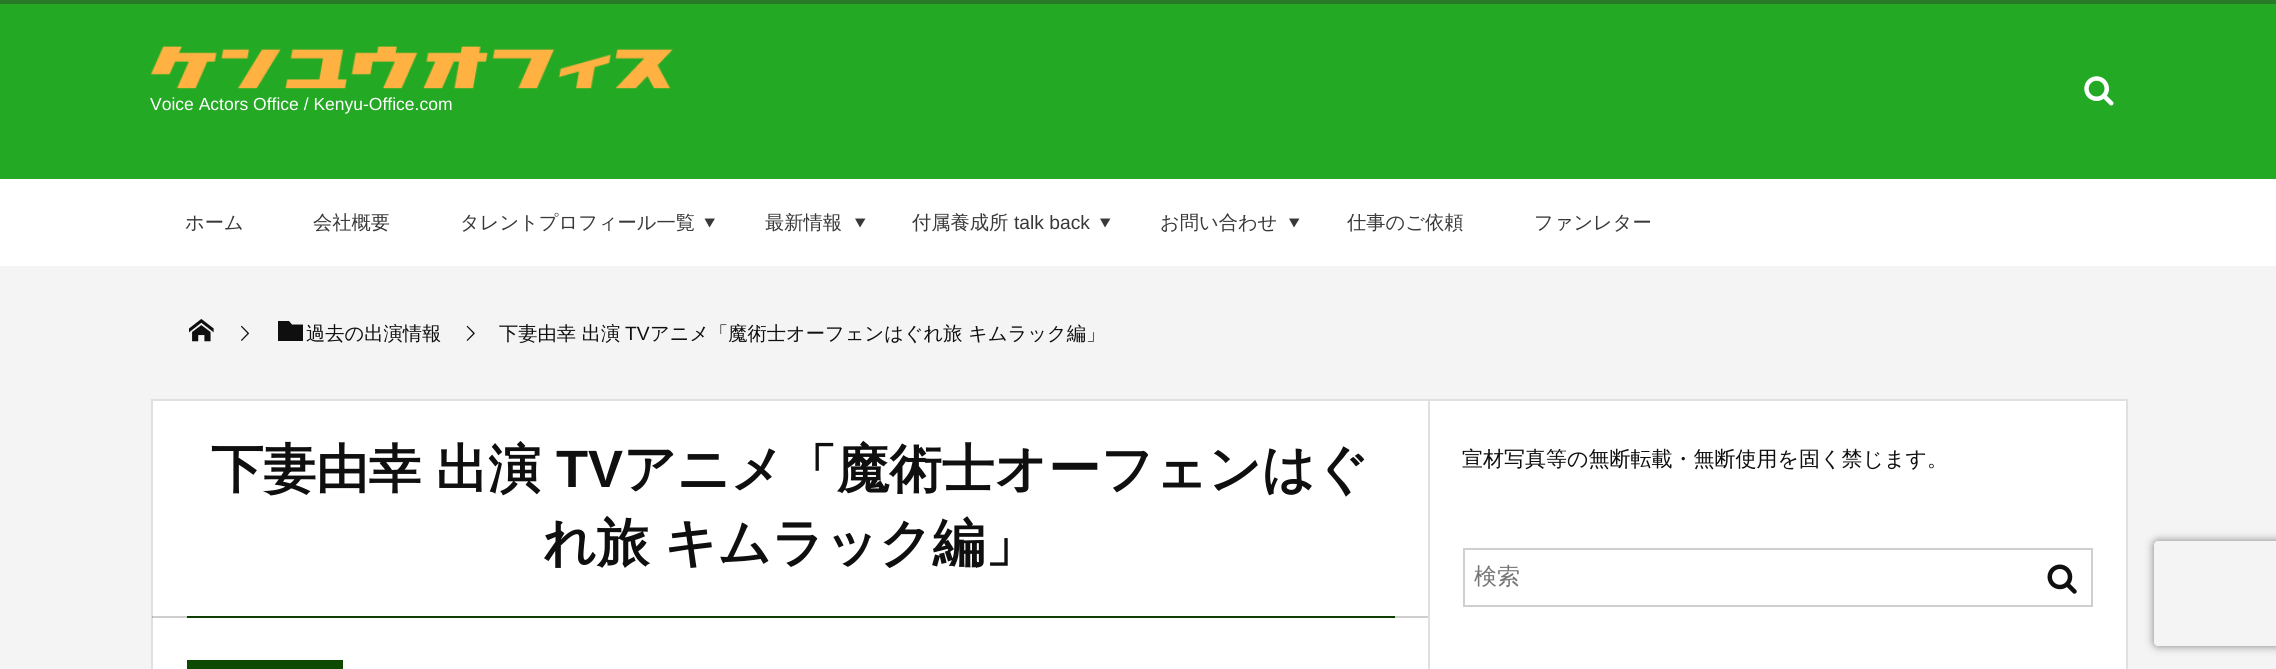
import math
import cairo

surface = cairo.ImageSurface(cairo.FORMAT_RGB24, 2276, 669)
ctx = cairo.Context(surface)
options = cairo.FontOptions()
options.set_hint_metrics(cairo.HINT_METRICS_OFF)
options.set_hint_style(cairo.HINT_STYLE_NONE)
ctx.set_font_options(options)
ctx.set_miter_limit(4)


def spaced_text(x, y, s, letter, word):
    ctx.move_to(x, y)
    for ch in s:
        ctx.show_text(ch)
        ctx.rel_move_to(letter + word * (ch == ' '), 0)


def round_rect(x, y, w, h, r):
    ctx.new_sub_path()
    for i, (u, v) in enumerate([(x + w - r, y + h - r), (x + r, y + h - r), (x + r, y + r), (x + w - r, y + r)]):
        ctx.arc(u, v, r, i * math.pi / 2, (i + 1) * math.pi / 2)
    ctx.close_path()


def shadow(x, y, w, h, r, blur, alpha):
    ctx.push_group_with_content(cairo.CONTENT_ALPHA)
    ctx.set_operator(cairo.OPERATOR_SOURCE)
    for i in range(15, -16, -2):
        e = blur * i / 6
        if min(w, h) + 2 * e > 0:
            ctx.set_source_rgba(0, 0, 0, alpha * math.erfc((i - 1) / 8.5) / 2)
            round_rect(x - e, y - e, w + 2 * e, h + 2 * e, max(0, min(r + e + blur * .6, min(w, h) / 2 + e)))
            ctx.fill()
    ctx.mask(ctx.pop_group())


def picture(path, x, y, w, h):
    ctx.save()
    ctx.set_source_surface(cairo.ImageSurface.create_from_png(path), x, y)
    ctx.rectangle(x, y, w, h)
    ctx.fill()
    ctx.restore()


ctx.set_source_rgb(0.141, 0.663, 0.141)
ctx.paint()
ctx.set_source_rgb(0.157, 0.478, 0.157)
ctx.rectangle(0, 0, 2276, 4)
ctx.fill()
picture("img1.png", 150, 46, 523, 43)
ctx.select_font_face("Liberation Sans")
ctx.set_font_size(17.5)
ctx.set_source_rgb(1, 1, 1)
ctx.move_to(150, 110)
ctx.show_text("Voice Actors Office / Kenyu-Office.com")
picture("img2.png", 2084, 76, 30, 30)
ctx.rectangle(0, 179, 2276, 87)
ctx.fill()
ctx.select_font_face("WenQuanYi Zen Hei Medium")
ctx.set_font_size(19.25)
ctx.set_source_rgb(0.22, 0.22, 0.22)
ctx.move_to(185, 229)
ctx.show_text("ホーム")
ctx.move_to(313, 229)
ctx.show_text("会社概要")
ctx.move_to(460, 229)
ctx.show_text("タレントプロフィール一覧")
ctx.new_path()
ctx.move_to(715, 218.5)
ctx.line_to(704.5, 218.5)
ctx.line_to(709.5, 227.5)
ctx.close_path()
ctx.fill()
ctx.move_to(765, 229)
ctx.show_text("最新情報")
ctx.new_path()
ctx.move_to(865.5, 218.5)
ctx.line_to(855, 218.5)
ctx.line_to(860, 227.5)
ctx.close_path()
ctx.fill()
ctx.move_to(912, 229)
ctx.show_text("付属養成所")
ctx.select_font_face("Liberation Sans")
ctx.move_to(1014, 229)
ctx.show_text("talk back")
ctx.new_path()
ctx.move_to(1110.5, 218.5)
ctx.line_to(1100, 218.5)
ctx.line_to(1105, 227.5)
ctx.close_path()
ctx.fill()
ctx.select_font_face("WenQuanYi Zen Hei Medium")
ctx.move_to(1160, 229)
ctx.show_text("お問い合わせ")
ctx.new_path()
ctx.move_to(1299.5, 218.5)
ctx.line_to(1289, 218.5)
ctx.line_to(1294, 227.5)
ctx.close_path()
ctx.fill()
ctx.move_to(1347, 229)
ctx.show_text("仕事のご依頼")
ctx.move_to(1534, 229)
ctx.show_text("ファンレター")
ctx.set_source_rgb(0.957, 0.957, 0.957)
ctx.rectangle(0, 266, 2276, 403)
ctx.fill()
picture("img3.png", 189, 319, 25, 23)
picture("img4.png", 241, 325, 8, 16)
ctx.set_source_rgb(0.059, 0.059, 0.059)
ctx.move_to(306, 340)
ctx.show_text("過去の出演情報")
ctx.new_path()
ctx.move_to(289, 321)
ctx.line_to(292, 324.5)
ctx.line_to(303, 324.5)
ctx.line_to(303, 341)
ctx.line_to(278, 341)
ctx.line_to(278, 321)
ctx.close_path()
ctx.fill()
picture("img5.png", 466, 325, 9, 16)
ctx.move_to(499, 340)
ctx.show_text("下妻由幸 出演")
ctx.select_font_face("Liberation Sans")
ctx.move_to(625, 340)
ctx.show_text("TV")
ctx.select_font_face("WenQuanYi Zen Hei Medium")
ctx.move_to(650, 340)
ctx.show_text("アニメ「魔術士オーフェンはぐれ旅 キムラック編」")
ctx.set_source_rgb(1, 1, 1)
ctx.rectangle(152, 400, 1975, 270)
ctx.fill_preserve()
ctx.set_source_rgb(0.878, 0.878, 0.878)
ctx.stroke()
ctx.set_source_rgb(0.055, 0.286, 0)
ctx.rectangle(187, 616, 1208, 2)
ctx.fill()
ctx.select_font_face("WenQuanYi Zen Hei", cairo.FONT_SLANT_NORMAL, cairo.FONT_WEIGHT_BOLD)
ctx.set_font_size(52.5)
ctx.set_source_rgb(0.059, 0.059, 0.059)
spaced_text(211, 487, "下妻由幸 出演", 0, -1)
ctx.select_font_face("Liberation Sans", cairo.FONT_SLANT_NORMAL, cairo.FONT_WEIGHT_BOLD)
ctx.move_to(556, 487)
ctx.show_text("TV")
ctx.select_font_face("WenQuanYi Zen Hei", cairo.FONT_SLANT_NORMAL, cairo.FONT_WEIGHT_BOLD)
ctx.move_to(623, 487)
ctx.show_text("アニメ「魔術士オーフェンはぐ")
spaced_text(543, 561, "れ旅 キムラック編」", 0, -1)
ctx.set_source_rgba(0.059, 0.059, 0.059, 0.2)
ctx.rectangle(152, 616, 1278, 2)
ctx.fill()
ctx.set_source_rgb(0.055, 0.286, 0)
ctx.rectangle(187, 660, 156, 9)
ctx.fill()
ctx.set_source_rgb(0.878, 0.878, 0.878)
ctx.rectangle(1428, 399, 2, 270)
ctx.fill()
ctx.select_font_face("WenQuanYi Zen Hei Medium")
ctx.set_font_size(21)
ctx.set_source_rgb(0.059, 0.059, 0.059)
ctx.move_to(1462, 466)
ctx.show_text("宣材写真等の無断転載・無断使用を固く禁じます。")
ctx.rectangle(1464, 549, 628, 57)
ctx.set_source_rgb(0.812, 0.812, 0.812)
ctx.stroke()
ctx.set_font_size(23)
ctx.set_source_rgb(0.459, 0.459, 0.459)
ctx.move_to(1474, 584)
ctx.show_text("検索")
picture("img6.png", 2047, 564, 30, 30)
ctx.save()
ctx.set_fill_rule(cairo.FILL_RULE_EVEN_ODD)
ctx.new_path()
ctx.move_to(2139, 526)
ctx.line_to(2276, 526)
ctx.line_to(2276, 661)
ctx.line_to(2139, 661)
ctx.close_path()
ctx.move_to(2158, 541)
ctx.line_to(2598, 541)
ctx.curve_to(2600, 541, 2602, 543, 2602, 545)
ctx.line_to(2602, 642)
ctx.curve_to(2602, 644, 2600, 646, 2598, 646)
ctx.line_to(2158, 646)
ctx.curve_to(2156, 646, 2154, 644, 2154, 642)
ctx.line_to(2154, 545)
ctx.curve_to(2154, 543, 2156, 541, 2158, 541)
ctx.close_path()
ctx.clip()
ctx.set_source_rgb(0.502, 0.502, 0.502)
shadow(2154, 541, 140, 105, 4, 4.5, 1)
ctx.restore()
surface.write_to_png("page.png")
